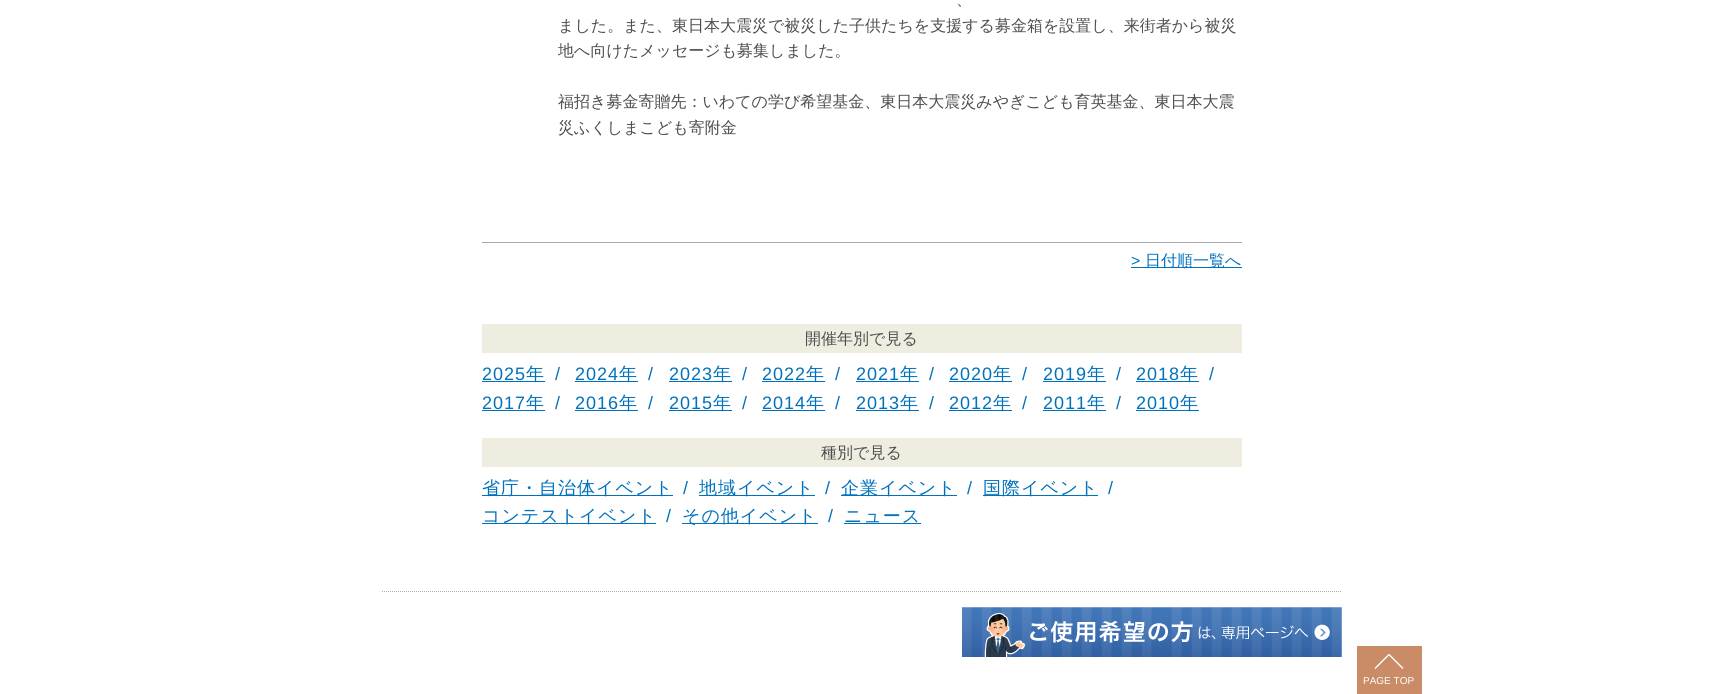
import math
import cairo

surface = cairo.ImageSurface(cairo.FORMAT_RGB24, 1723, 694)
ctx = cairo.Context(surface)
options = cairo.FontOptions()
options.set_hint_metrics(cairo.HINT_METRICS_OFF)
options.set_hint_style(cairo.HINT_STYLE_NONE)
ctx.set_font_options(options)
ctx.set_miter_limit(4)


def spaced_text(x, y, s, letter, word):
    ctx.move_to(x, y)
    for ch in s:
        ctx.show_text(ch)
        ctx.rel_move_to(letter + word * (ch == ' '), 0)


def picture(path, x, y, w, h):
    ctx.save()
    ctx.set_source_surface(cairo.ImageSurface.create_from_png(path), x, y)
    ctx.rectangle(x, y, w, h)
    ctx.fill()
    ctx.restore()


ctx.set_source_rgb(1, 1, 1)
ctx.paint()
ctx.set_source_rgb(0.675, 0.675, 0.675)
ctx.rectangle(482, 242, 760, 1)
ctx.fill()
ctx.select_font_face("WenQuanYi Zen Hei Medium")
ctx.set_font_size(16)
ctx.set_source_rgb(0.302, 0.302, 0.302)
ctx.move_to(956, 5)
ctx.show_text("、")
ctx.move_to(558, 31)
ctx.show_text("ました。また、東日本大震災で被災した子供たちを支援する募金箱を設置し、来街者から被災")
ctx.move_to(558, 56)
ctx.show_text("地へ向けたメッセージも募集しました。")
ctx.move_to(558, 107)
ctx.show_text("福招き募金寄贈先：いわての学び希望基金、東日本大震災みやぎこども育英基金、東日本大震")
ctx.move_to(558, 133)
ctx.show_text("災ふくしまこども寄附金")
ctx.select_font_face("Liberation Sans")
ctx.set_source_rgb(0, 0.443, 0.737)
ctx.move_to(1131, 266)
ctx.show_text(">")
ctx.rectangle(1131, 267, 111, 1)
ctx.fill()
ctx.select_font_face("WenQuanYi Zen Hei Medium")
ctx.move_to(1145, 266)
ctx.show_text("日付順一覧へ")
ctx.set_source_rgb(0.937, 0.929, 0.878)
ctx.rectangle(482, 324, 760, 29)
ctx.fill()
ctx.set_source_rgb(0.302, 0.302, 0.302)
ctx.move_to(805, 344)
ctx.show_text("開催年別で見る")
ctx.select_font_face("Liberation Sans")
ctx.set_font_size(18)
ctx.set_source_rgb(0, 0.443, 0.737)
spaced_text(482, 380, "2025", 1, 0)
ctx.rectangle(482, 381, 63, 1)
ctx.fill()
ctx.select_font_face("WenQuanYi Zen Hei Medium")
spaced_text(526, 380, "年", 1, 0)
ctx.select_font_face("Liberation Sans")
spaced_text(555, 380, "/", 1, 0)
spaced_text(575, 380, "2024", 1, 0)
ctx.rectangle(575, 381, 63, 1)
ctx.fill()
ctx.select_font_face("WenQuanYi Zen Hei Medium")
spaced_text(619, 380, "年", 1, 0)
ctx.select_font_face("Liberation Sans")
spaced_text(648, 380, "/", 1, 0)
spaced_text(669, 380, "2023", 1, 0)
ctx.rectangle(669, 381, 63, 1)
ctx.fill()
ctx.select_font_face("WenQuanYi Zen Hei Medium")
spaced_text(713, 380, "年", 1, 0)
ctx.select_font_face("Liberation Sans")
spaced_text(742, 380, "/", 1, 0)
spaced_text(762, 380, "2022", 1, 0)
ctx.rectangle(762, 381, 63, 1)
ctx.fill()
ctx.select_font_face("WenQuanYi Zen Hei Medium")
spaced_text(806, 380, "年", 1, 0)
ctx.select_font_face("Liberation Sans")
spaced_text(835, 380, "/", 1, 0)
spaced_text(856, 380, "2021", 1, 0)
ctx.rectangle(856, 381, 63, 1)
ctx.fill()
ctx.select_font_face("WenQuanYi Zen Hei Medium")
spaced_text(900, 380, "年", 1, 0)
ctx.select_font_face("Liberation Sans")
spaced_text(929, 380, "/", 1, 0)
spaced_text(949, 380, "2020", 1, 0)
ctx.rectangle(949, 381, 63, 1)
ctx.fill()
ctx.select_font_face("WenQuanYi Zen Hei Medium")
spaced_text(993, 380, "年", 1, 0)
ctx.select_font_face("Liberation Sans")
spaced_text(1022, 380, "/", 1, 0)
spaced_text(1043, 380, "2019", 1, 0)
ctx.rectangle(1043, 381, 63, 1)
ctx.fill()
ctx.select_font_face("WenQuanYi Zen Hei Medium")
spaced_text(1087, 380, "年", 1, 0)
ctx.select_font_face("Liberation Sans")
spaced_text(1116, 380, "/", 1, 0)
spaced_text(1136, 380, "2018", 1, 0)
ctx.rectangle(1136, 381, 63, 1)
ctx.fill()
ctx.select_font_face("WenQuanYi Zen Hei Medium")
spaced_text(1180, 380, "年", 1, 0)
ctx.select_font_face("Liberation Sans")
spaced_text(1209, 380, "/", 1, 0)
spaced_text(482, 409, "2017", 1, 0)
ctx.rectangle(482, 410, 63, 1)
ctx.fill()
ctx.select_font_face("WenQuanYi Zen Hei Medium")
spaced_text(526, 409, "年", 1, 0)
ctx.select_font_face("Liberation Sans")
spaced_text(555, 409, "/", 1, 0)
spaced_text(575, 409, "2016", 1, 0)
ctx.rectangle(575, 410, 63, 1)
ctx.fill()
ctx.select_font_face("WenQuanYi Zen Hei Medium")
spaced_text(619, 409, "年", 1, 0)
ctx.select_font_face("Liberation Sans")
spaced_text(648, 409, "/", 1, 0)
spaced_text(669, 409, "2015", 1, 0)
ctx.rectangle(669, 410, 63, 1)
ctx.fill()
ctx.select_font_face("WenQuanYi Zen Hei Medium")
spaced_text(713, 409, "年", 1, 0)
ctx.select_font_face("Liberation Sans")
spaced_text(742, 409, "/", 1, 0)
spaced_text(762, 409, "2014", 1, 0)
ctx.rectangle(762, 410, 63, 1)
ctx.fill()
ctx.select_font_face("WenQuanYi Zen Hei Medium")
spaced_text(806, 409, "年", 1, 0)
ctx.select_font_face("Liberation Sans")
spaced_text(835, 409, "/", 1, 0)
spaced_text(856, 409, "2013", 1, 0)
ctx.rectangle(856, 410, 63, 1)
ctx.fill()
ctx.select_font_face("WenQuanYi Zen Hei Medium")
spaced_text(900, 409, "年", 1, 0)
ctx.select_font_face("Liberation Sans")
spaced_text(929, 409, "/", 1, 0)
spaced_text(949, 409, "2012", 1, 0)
ctx.rectangle(949, 410, 63, 1)
ctx.fill()
ctx.select_font_face("WenQuanYi Zen Hei Medium")
spaced_text(993, 409, "年", 1, 0)
ctx.select_font_face("Liberation Sans")
spaced_text(1022, 409, "/", 1, 0)
spaced_text(1043, 409, "2011", 1, 0)
ctx.rectangle(1043, 410, 63, 1)
ctx.fill()
ctx.select_font_face("WenQuanYi Zen Hei Medium")
spaced_text(1087, 409, "年", 1, 0)
ctx.select_font_face("Liberation Sans")
spaced_text(1116, 409, "/", 1, 0)
spaced_text(1136, 409, "2010", 1, 0)
ctx.rectangle(1136, 410, 63, 1)
ctx.fill()
ctx.select_font_face("WenQuanYi Zen Hei Medium")
spaced_text(1180, 409, "年", 1, 0)
ctx.set_source_rgb(0.937, 0.929, 0.878)
ctx.rectangle(482, 438, 760, 29)
ctx.fill()
ctx.set_font_size(16)
ctx.set_source_rgb(0.302, 0.302, 0.302)
ctx.move_to(821, 458)
ctx.show_text("種別で見る")
ctx.set_source_rgb(0, 0.443, 0.737)
ctx.rectangle(482, 495, 191, 1)
ctx.fill()
ctx.set_font_size(18)
spaced_text(482, 494, "省庁・自治体イベント", 1, 0)
ctx.select_font_face("Liberation Sans")
spaced_text(683, 494, "/", 1, 0)
ctx.rectangle(699, 495, 116, 1)
ctx.fill()
ctx.select_font_face("WenQuanYi Zen Hei Medium")
spaced_text(699, 494, "地域イベント", 1, 0)
ctx.select_font_face("Liberation Sans")
spaced_text(825, 494, "/", 1, 0)
ctx.rectangle(841, 495, 116, 1)
ctx.fill()
ctx.select_font_face("WenQuanYi Zen Hei Medium")
spaced_text(841, 494, "企業イベント", 1, 0)
ctx.select_font_face("Liberation Sans")
spaced_text(967, 494, "/", 1, 0)
ctx.rectangle(983, 495, 115, 1)
ctx.fill()
ctx.select_font_face("WenQuanYi Zen Hei Medium")
spaced_text(983, 494, "国際イベント", 1, 0)
ctx.select_font_face("Liberation Sans")
spaced_text(1108, 494, "/", 1, 0)
ctx.rectangle(482, 523, 174, 1)
ctx.fill()
ctx.select_font_face("WenQuanYi Zen Hei Medium")
spaced_text(482, 522, "コンテストイベント", 1, 0)
ctx.select_font_face("Liberation Sans")
spaced_text(666, 522, "/", 1, 0)
ctx.rectangle(682, 523, 136, 1)
ctx.fill()
ctx.select_font_face("WenQuanYi Zen Hei Medium")
spaced_text(682, 522, "その他イベント", 1, 0)
ctx.select_font_face("Liberation Sans")
spaced_text(828, 522, "/", 1, 0)
ctx.select_font_face("WenQuanYi Zen Hei Medium")
spaced_text(844, 522, "ニュース", 1, 0)
ctx.rectangle(844, 523, 77, 1)
ctx.fill()
ctx.new_path()
ctx.move_to(382, 591.5)
ctx.line_to(1342, 591.5)
ctx.set_source_rgb(0.675, 0.675, 0.675)
ctx.set_line_width(1)
ctx.set_dash([1, 1])
ctx.stroke()
picture("img1.png", 962, 607, 380, 50)
ctx.set_source_rgb(0.788, 0.549, 0.4)
ctx.rectangle(1357, 646, 65, 48)
ctx.fill()
ctx.set_source_rgb(1, 1, 1)
ctx.new_path()
ctx.move_to(1374.5, 668)
ctx.line_to(1388.5, 654)
ctx.line_to(1389.5, 655)
ctx.line_to(1375.5, 669)
ctx.close_path()
ctx.fill()
ctx.new_path()
ctx.move_to(1389.5, 654)
ctx.line_to(1403.5, 668)
ctx.line_to(1402.5, 669)
ctx.line_to(1388.5, 655)
ctx.close_path()
ctx.fill()
ctx.select_font_face("Liberation Sans")
ctx.set_font_size(10)
ctx.move_to(1363, 684)
ctx.show_text("PAGE TOP")
surface.write_to_png("page.png")
